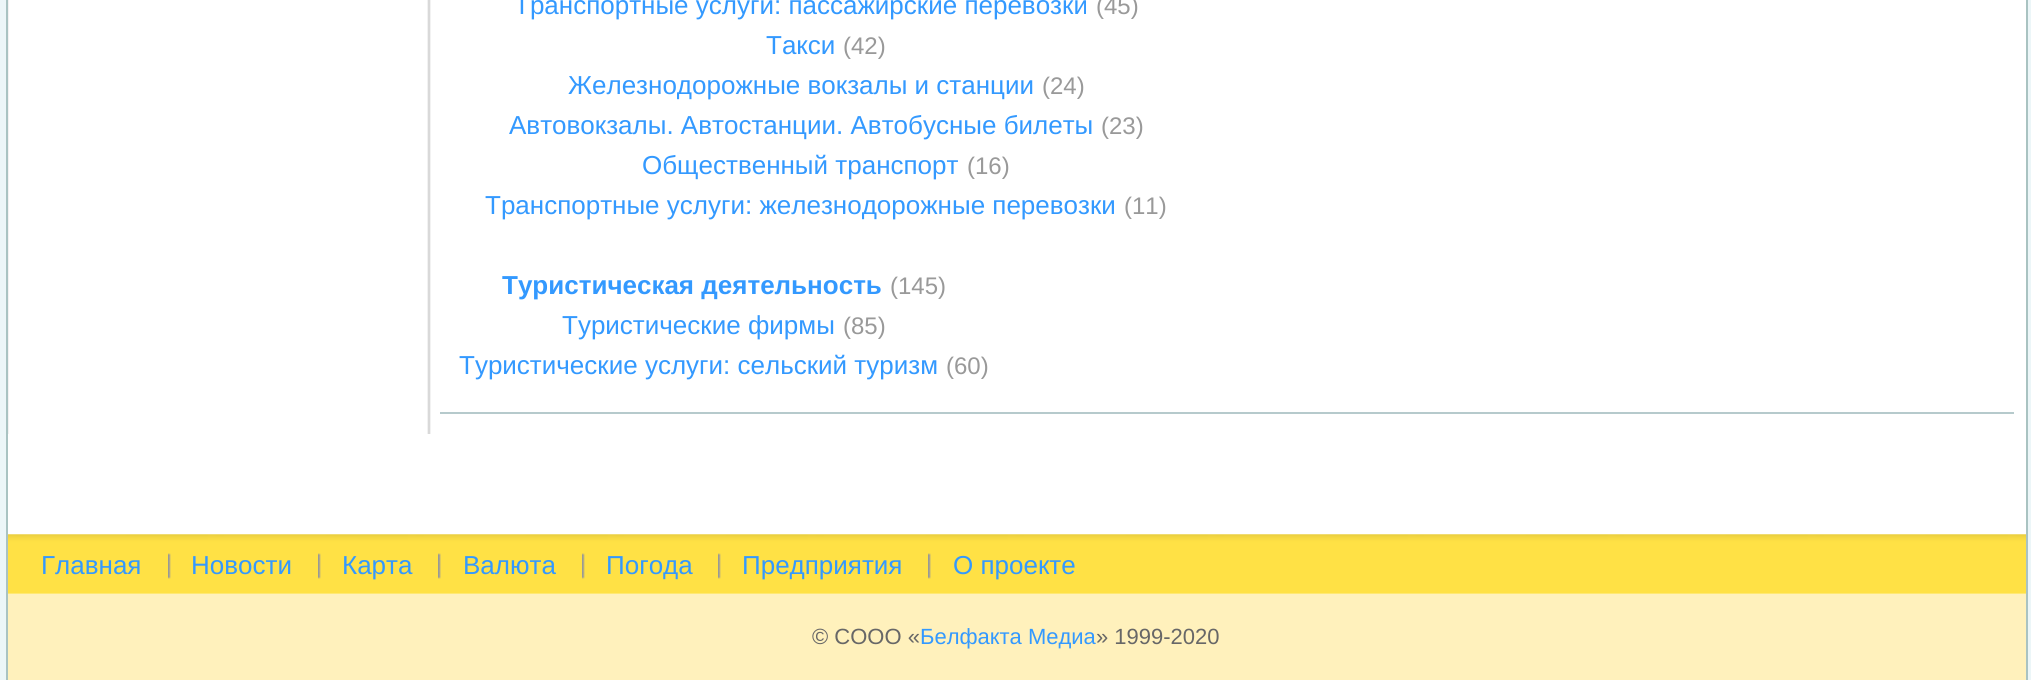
import math
import cairo

surface = cairo.ImageSurface(cairo.FORMAT_RGB24, 2031, 680)
ctx = cairo.Context(surface)
options = cairo.FontOptions()
options.set_hint_metrics(cairo.HINT_METRICS_OFF)
options.set_hint_style(cairo.HINT_STYLE_NONE)
ctx.set_font_options(options)
ctx.set_miter_limit(4)


def picture(path, x, y, w, h):
    ctx.save()
    ctx.set_source_surface(cairo.ImageSurface.create_from_png(path), x, y)
    ctx.rectangle(x, y, w, h)
    ctx.fill()
    ctx.restore()


ctx.set_source_rgb(0.925, 0.961, 0.969)
ctx.paint()
ctx.set_source_rgb(1, 1, 1)
ctx.rectangle(8, 0, 2018, 594)
ctx.fill()
ctx.set_source_rgb(0.663, 0.765, 0.761)
ctx.rectangle(2026, 0, 2, 680)
ctx.fill()
ctx.rectangle(6, 0, 2, 680)
ctx.fill()
picture("img1.png", 8, 0, 423, 434)
ctx.set_source_rgb(0.714, 0.792, 0.8)
ctx.rectangle(440, 412, 1574, 2)
ctx.fill()
ctx.select_font_face("Liberation Sans")
ctx.set_font_size(26)
ctx.set_source_rgb(0.2, 0.6, 1)
ctx.move_to(514, 14)
ctx.show_text("Транспортные услуги: пассажирские перевозки")
ctx.set_font_size(24)
ctx.set_source_rgb(0.6, 0.6, 0.6)
ctx.move_to(1096, 14)
ctx.show_text("(45)")
ctx.set_font_size(26)
ctx.set_source_rgb(0.2, 0.6, 1)
ctx.move_to(766, 54)
ctx.show_text("Такси")
ctx.set_font_size(24)
ctx.set_source_rgb(0.6, 0.6, 0.6)
ctx.move_to(843, 54)
ctx.show_text("(42)")
ctx.set_font_size(26)
ctx.set_source_rgb(0.2, 0.6, 1)
ctx.move_to(568, 94)
ctx.show_text("Железнодорожные вокзалы и станции")
ctx.set_font_size(24)
ctx.set_source_rgb(0.6, 0.6, 0.6)
ctx.move_to(1042, 94)
ctx.show_text("(24)")
ctx.set_font_size(26)
ctx.set_source_rgb(0.2, 0.6, 1)
ctx.move_to(509, 134)
ctx.show_text("Автовокзалы. Автостанции. Автобусные билеты")
ctx.set_font_size(24)
ctx.set_source_rgb(0.6, 0.6, 0.6)
ctx.move_to(1101, 134)
ctx.show_text("(23)")
ctx.set_font_size(26)
ctx.set_source_rgb(0.2, 0.6, 1)
ctx.move_to(642, 174)
ctx.show_text("Общественный транспорт")
ctx.set_font_size(24)
ctx.set_source_rgb(0.6, 0.6, 0.6)
ctx.move_to(967, 174)
ctx.show_text("(16)")
ctx.set_font_size(26)
ctx.set_source_rgb(0.2, 0.6, 1)
ctx.move_to(485, 214)
ctx.show_text("Транспортные услуги: железнодорожные перевозки")
ctx.set_font_size(24)
ctx.set_source_rgb(0.6, 0.6, 0.6)
ctx.move_to(1124, 214)
ctx.show_text("(11)")
ctx.select_font_face("Liberation Sans", cairo.FONT_SLANT_NORMAL, cairo.FONT_WEIGHT_BOLD)
ctx.set_font_size(26)
ctx.set_source_rgb(0.2, 0.6, 1)
ctx.move_to(502, 294)
ctx.show_text("Туристическая деятельность")
ctx.select_font_face("Liberation Sans")
ctx.set_font_size(24)
ctx.set_source_rgb(0.6, 0.6, 0.6)
ctx.move_to(890, 294)
ctx.show_text("(145)")
ctx.set_font_size(26)
ctx.set_source_rgb(0.2, 0.6, 1)
ctx.move_to(562, 334)
ctx.show_text("Туристические фирмы")
ctx.set_font_size(24)
ctx.set_source_rgb(0.6, 0.6, 0.6)
ctx.move_to(843, 334)
ctx.show_text("(85)")
ctx.set_font_size(26)
ctx.set_source_rgb(0.2, 0.6, 1)
ctx.move_to(459, 374)
ctx.show_text("Туристические услуги: сельский туризм")
ctx.set_font_size(24)
ctx.set_source_rgb(0.6, 0.6, 0.6)
ctx.move_to(946, 374)
ctx.show_text("(60)")
picture("img2.png", 8, 534, 2018, 60)
ctx.set_font_size(26)
ctx.set_source_rgb(0.2, 0.6, 1)
ctx.move_to(41, 574)
ctx.show_text("Главная")
picture("img3.png", 168, 553, 3, 26)
ctx.move_to(191, 574)
ctx.show_text("Новости")
picture("img3.png", 318, 553, 3, 26)
ctx.move_to(342, 574)
ctx.show_text("Карта")
picture("img4.png", 438, 553, 3, 26)
ctx.move_to(463, 574)
ctx.show_text("Валюта")
picture("img3.png", 582, 553, 3, 26)
ctx.move_to(606, 574)
ctx.show_text("Погода")
picture("img3.png", 718, 553, 3, 26)
ctx.move_to(742, 574)
ctx.show_text("Предприятия")
picture("img4.png", 928, 553, 3, 26)
ctx.move_to(953, 574)
ctx.show_text("О проекте")
ctx.set_source_rgb(1, 0.945, 0.737)
ctx.rectangle(8, 594, 2018, 86)
ctx.fill()
ctx.set_font_size(22)
ctx.set_source_rgb(0.404, 0.404, 0.404)
ctx.move_to(812, 644)
ctx.show_text("© СООО «")
ctx.set_source_rgb(0.2, 0.6, 1)
ctx.move_to(920, 644)
ctx.show_text("Белфакта Медиа")
ctx.set_source_rgb(0.404, 0.404, 0.404)
ctx.move_to(1096, 644)
ctx.show_text("» 1999-2020")
surface.write_to_png("page.png")
